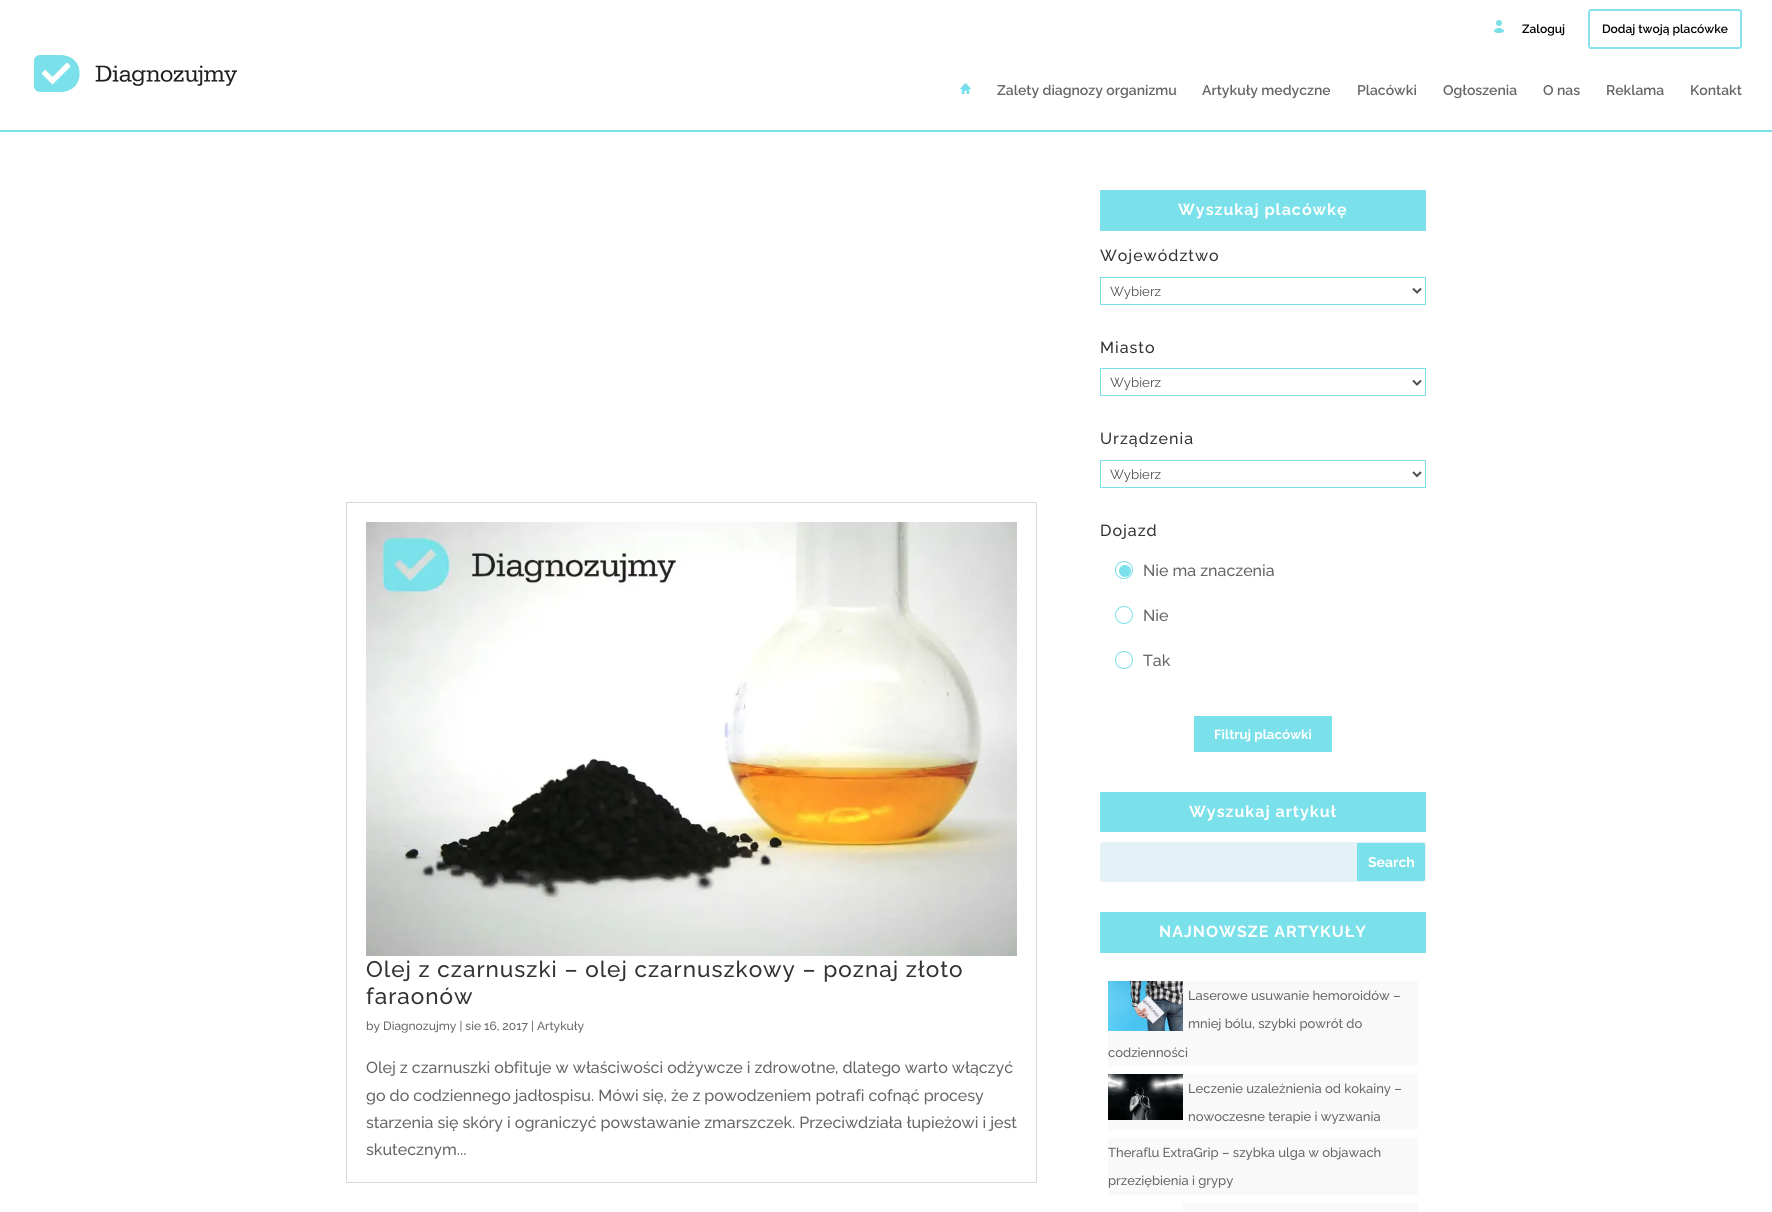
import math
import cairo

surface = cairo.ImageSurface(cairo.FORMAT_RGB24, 1772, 1212)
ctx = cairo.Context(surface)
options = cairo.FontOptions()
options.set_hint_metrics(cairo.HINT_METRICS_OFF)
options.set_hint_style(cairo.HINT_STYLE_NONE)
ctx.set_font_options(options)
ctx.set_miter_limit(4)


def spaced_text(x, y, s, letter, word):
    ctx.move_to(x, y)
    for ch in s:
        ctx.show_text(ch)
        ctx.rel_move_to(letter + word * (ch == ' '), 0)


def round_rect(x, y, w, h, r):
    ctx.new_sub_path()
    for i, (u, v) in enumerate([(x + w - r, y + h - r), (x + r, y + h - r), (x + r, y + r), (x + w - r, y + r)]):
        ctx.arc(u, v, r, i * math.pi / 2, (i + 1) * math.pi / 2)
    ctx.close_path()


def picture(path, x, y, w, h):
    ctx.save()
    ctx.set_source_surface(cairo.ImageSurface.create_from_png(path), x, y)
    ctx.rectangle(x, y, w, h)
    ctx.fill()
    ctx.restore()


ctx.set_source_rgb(1, 1, 1)
ctx.paint()
picture("img1.png", 1494, 20, 10, 13)
ctx.select_font_face("Raleway SemiBold")
ctx.set_font_size(12)
ctx.set_source_rgb(0, 0, 0)
ctx.move_to(1522, 33)
ctx.show_text("Zaloguj")
round_rect(1589, 10, 152, 38, 2)
ctx.set_source_rgb(0.522, 0.886, 0.922)
ctx.stroke()
ctx.set_source_rgb(0, 0, 0)
ctx.move_to(1602, 33)
ctx.show_text("Dodaj twoją placówke")
picture("img2.png", 34, 55, 203, 37)
picture("img3.png", 960, 83, 11, 11)
ctx.set_font_size(14)
ctx.set_source_rgb(0.4, 0.4, 0.4)
ctx.move_to(997, 95)
ctx.show_text("Zalety diagnozy organizmu")
ctx.move_to(1202, 95)
ctx.show_text("Artykuły medyczne")
ctx.move_to(1357, 95)
ctx.show_text("Placówki")
ctx.move_to(1443, 95)
ctx.show_text("Ogłoszenia")
ctx.move_to(1543, 95)
ctx.show_text("O nas")
ctx.move_to(1606, 95)
ctx.show_text("Reklama")
ctx.move_to(1690, 95)
ctx.show_text("Kontakt")
ctx.set_source_rgb(0.478, 0.878, 0.914)
ctx.rectangle(0, 130, 1772, 2)
ctx.fill()
ctx.rectangle(346.5, 502.5, 690, 680)
ctx.set_source_rgb(0.847, 0.847, 0.847)
ctx.set_line_width(1)
ctx.stroke()
picture("img4.png", 366, 522, 651, 434)
ctx.select_font_face("Raleway Medium")
ctx.set_font_size(22.5)
ctx.set_source_rgb(0.2, 0.2, 0.2)
spaced_text(366, 977, "Olej z czarnuszki – olej czarnuszkowy – poznaj złoto", 1, 0)
spaced_text(366, 1004, "faraonów", 1, 0)
ctx.set_font_size(12)
ctx.set_source_rgb(0.4, 0.4, 0.4)
ctx.move_to(366, 1030)
ctx.show_text("by Diagnozujmy | sie 16, 2017 | Artykuły")
ctx.set_font_size(16)
ctx.move_to(366, 1073)
ctx.show_text("Olej z czarnuszki obfituje w właściwości odżywcze i zdrowotne, dlatego warto włączyć")
ctx.move_to(366, 1101)
ctx.show_text("go do codziennego jadłospisu. Mówi się, że z powodzeniem potrafi cofnąć procesy")
ctx.move_to(366, 1128)
ctx.show_text("starzenia się skóry i ograniczyć powstawanie zmarszczek. Przeciwdziała łupieżowi i jest")
ctx.move_to(366, 1155)
ctx.show_text("skutecznym...")
ctx.set_source_rgb(0.478, 0.878, 0.914)
ctx.rectangle(1100, 190, 326, 41)
ctx.fill()
ctx.select_font_face("Raleway", cairo.FONT_SLANT_NORMAL, cairo.FONT_WEIGHT_BOLD)
ctx.set_source_rgb(1, 1, 1)
spaced_text(1178, 215, "Wyszukaj placówkę", 1, 0)
ctx.select_font_face("Raleway Medium")
ctx.set_source_rgb(0.2, 0.2, 0.2)
spaced_text(1100, 261, "Województwo", 1, 0)
ctx.rectangle(1100.5, 277.5, 325, 27)
ctx.set_source_rgb(0.478, 0.878, 0.914)
ctx.stroke()
ctx.new_path()
ctx.move_to(1413, 288.5)
ctx.line_to(1417, 292.5)
ctx.line_to(1421, 288.5)
ctx.set_source_rgb(0.306, 0.306, 0.306)
ctx.set_line_width(2)
ctx.stroke()
ctx.select_font_face("Raleway")
ctx.set_font_size(13.25)
ctx.move_to(1110, 296)
ctx.show_text("Wybierz")
ctx.select_font_face("Raleway Medium")
ctx.set_font_size(16)
ctx.set_source_rgb(0.2, 0.2, 0.2)
spaced_text(1100, 353, "Miasto", 1, 0)
ctx.rectangle(1100.5, 368.5, 325, 27)
ctx.set_source_rgb(0.478, 0.878, 0.914)
ctx.set_line_width(1)
ctx.stroke()
ctx.new_path()
ctx.move_to(1413, 380.5)
ctx.line_to(1417, 384.5)
ctx.line_to(1421, 380.5)
ctx.set_source_rgb(0.306, 0.306, 0.306)
ctx.set_line_width(2)
ctx.stroke()
ctx.select_font_face("Raleway")
ctx.set_font_size(13.25)
ctx.move_to(1110, 387)
ctx.show_text("Wybierz")
ctx.select_font_face("Raleway Medium")
ctx.set_font_size(16)
ctx.set_source_rgb(0.2, 0.2, 0.2)
spaced_text(1100, 444, "Urządzenia", 1, 0)
ctx.rectangle(1100.5, 460.5, 325, 27)
ctx.set_source_rgb(0.478, 0.878, 0.914)
ctx.set_line_width(1)
ctx.stroke()
ctx.new_path()
ctx.move_to(1413, 472)
ctx.line_to(1417, 476)
ctx.line_to(1421, 472)
ctx.set_source_rgb(0.306, 0.306, 0.306)
ctx.set_line_width(2)
ctx.stroke()
ctx.select_font_face("Raleway")
ctx.set_font_size(13.25)
ctx.move_to(1110, 479)
ctx.show_text("Wybierz")
ctx.select_font_face("Raleway Medium")
ctx.set_font_size(16)
ctx.set_source_rgb(0.2, 0.2, 0.2)
spaced_text(1100, 536, "Dojazd", 1, 0)
ctx.new_path()
ctx.arc(1124, 570, 8.5, 0, 2 * math.pi)
ctx.set_source_rgb(0.478, 0.878, 0.914)
ctx.set_line_width(1)
ctx.stroke()
ctx.set_source_rgb(0.4, 0.4, 0.4)
ctx.move_to(1143, 576)
ctx.show_text("Nie ma znaczenia")
ctx.set_source_rgb(0.478, 0.878, 0.914)
ctx.new_path()
ctx.arc(1125, 571, 6, 0, 2 * math.pi)
ctx.fill()
ctx.arc(1124, 615, 8.5, 0, 2 * math.pi)
ctx.stroke()
ctx.set_source_rgb(0.4, 0.4, 0.4)
ctx.move_to(1143, 621)
ctx.show_text("Nie")
ctx.new_path()
ctx.arc(1124, 660, 8.5, 0, 2 * math.pi)
ctx.set_source_rgb(0.478, 0.878, 0.914)
ctx.stroke()
ctx.set_source_rgb(0.4, 0.4, 0.4)
ctx.move_to(1143, 666)
ctx.show_text("Tak")
ctx.set_source_rgb(0.478, 0.878, 0.914)
ctx.rectangle(1194, 716, 138, 36)
ctx.fill()
ctx.select_font_face("Raleway", cairo.FONT_SLANT_NORMAL, cairo.FONT_WEIGHT_BOLD)
ctx.set_font_size(13.25)
ctx.set_source_rgb(1, 1, 1)
ctx.move_to(1214, 739)
ctx.show_text("Filtruj placówki")
ctx.set_source_rgb(0.478, 0.878, 0.914)
ctx.rectangle(1100, 792, 326, 40)
ctx.fill()
ctx.set_font_size(16)
ctx.set_source_rgb(1, 1, 1)
spaced_text(1189, 817, "Wyszukaj artykuł", 1, 0)
ctx.set_source_rgb(0.894, 0.945, 0.965)
round_rect(1100.5, 842.5, 325, 39, 2.5)
ctx.fill_preserve()
ctx.stroke()
ctx.set_source_rgb(0.478, 0.878, 0.914)
ctx.new_path()
ctx.move_to(1356.5, 842.5)
ctx.line_to(1423, 842.5)
ctx.curve_to(1424.5, 842.5, 1425.5, 843.5, 1425.5, 845)
ctx.line_to(1425.5, 879)
ctx.curve_to(1425.5, 880.5, 1424.5, 881.5, 1423, 881.5)
ctx.line_to(1356.5, 881.5)
ctx.close_path()
ctx.fill_preserve()
ctx.set_source_rgb(0.894, 0.945, 0.965)
ctx.stroke()
ctx.set_font_size(14)
ctx.set_source_rgb(1, 1, 1)
ctx.move_to(1368, 867)
ctx.show_text("Search")
ctx.set_source_rgb(0.478, 0.878, 0.914)
ctx.rectangle(1100, 912, 326, 41)
ctx.fill()
ctx.set_font_size(16)
ctx.set_source_rgb(1, 1, 1)
spaced_text(1159, 937, "NAJNOWSZE ARTYKUŁY", 1, 0)
ctx.set_source_rgb(0.976, 0.976, 0.976)
ctx.rectangle(1108, 981, 310, 85)
ctx.fill()
picture("img5.png", 1108, 981, 75, 50)
ctx.select_font_face("Raleway Medium")
ctx.set_font_size(13)
ctx.set_source_rgb(0.4, 0.4, 0.4)
ctx.move_to(1188, 1000)
ctx.show_text("Laserowe usuwanie hemoroidów –")
ctx.move_to(1188, 1028)
ctx.show_text("mniej bólu, szybki powrót do")
ctx.move_to(1108, 1057)
ctx.show_text("codzienności")
ctx.set_source_rgb(0.976, 0.976, 0.976)
ctx.rectangle(1108, 1074, 310, 56)
ctx.fill()
picture("img6.png", 1108, 1074, 75, 46)
ctx.set_source_rgb(0.4, 0.4, 0.4)
ctx.move_to(1188, 1093)
ctx.show_text("Leczenie uzależnienia od kokainy –")
ctx.move_to(1188, 1121)
ctx.show_text("nowoczesne terapie i wyzwania")
ctx.set_source_rgb(0.976, 0.976, 0.976)
ctx.rectangle(1108, 1138, 310, 57)
ctx.fill()
ctx.set_source_rgb(0.4, 0.4, 0.4)
ctx.move_to(1108, 1157)
ctx.show_text("Theraflu ExtraGrip – szybka ulga w objawach")
ctx.move_to(1108, 1185)
ctx.show_text("przeziębienia i grypy")
ctx.set_source_rgb(0.976, 0.976, 0.976)
ctx.rectangle(1183, 1203, 235, 9)
ctx.fill()
surface.write_to_png("page.png")
